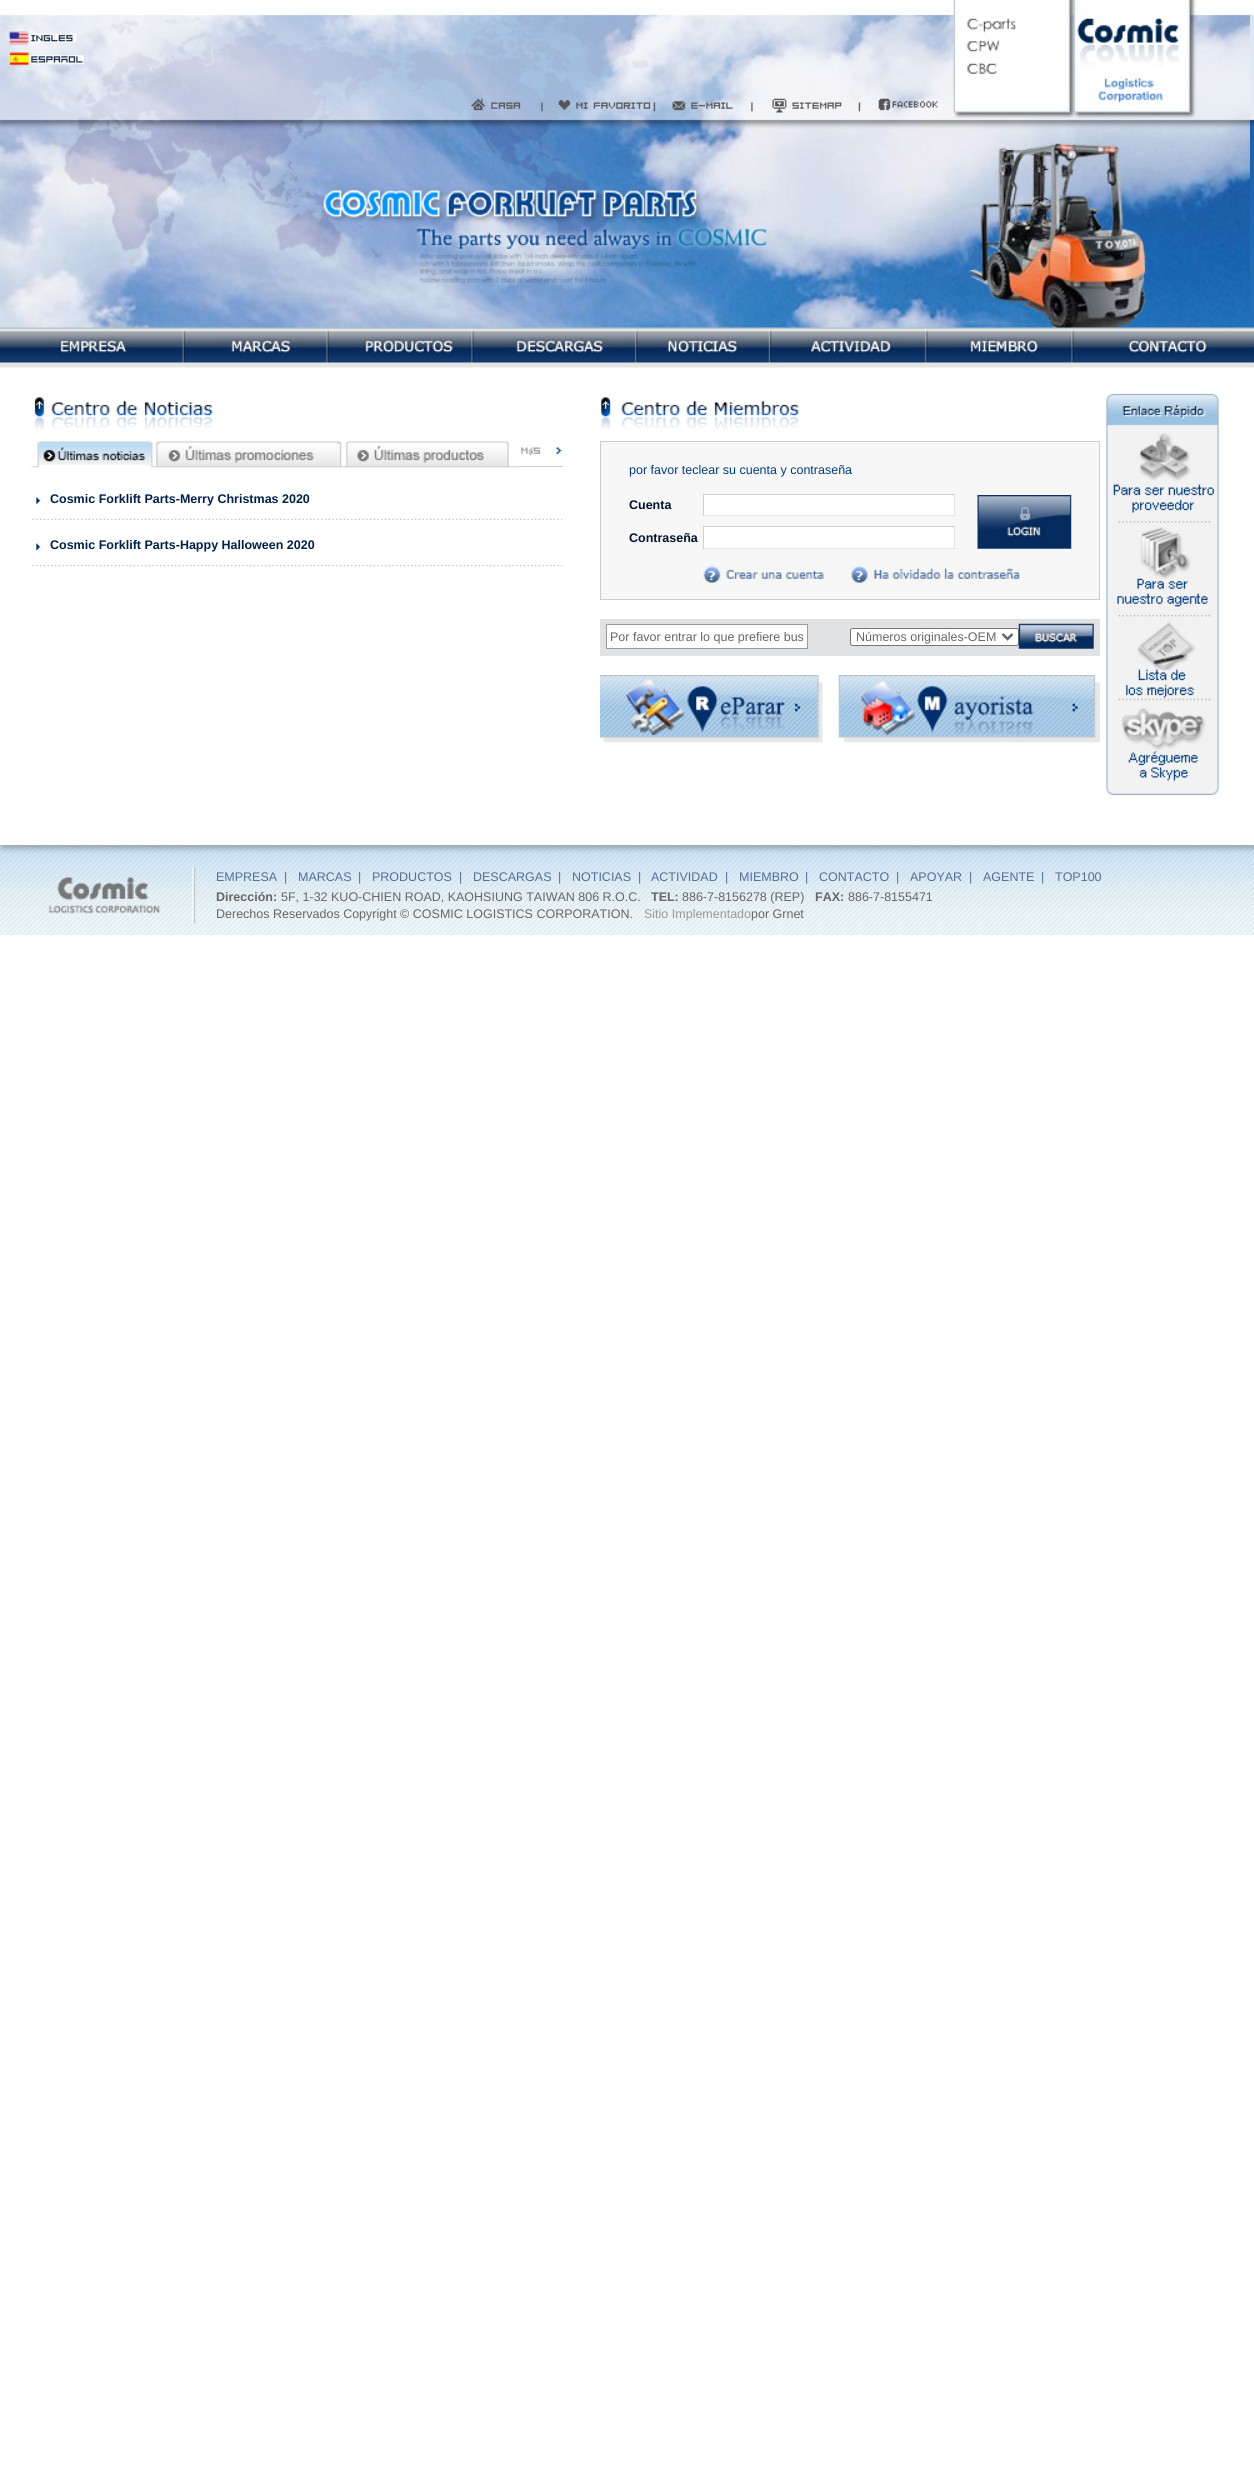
import math
import cairo

surface = cairo.ImageSurface(cairo.FORMAT_RGB24, 1254, 2465)
ctx = cairo.Context(surface)
options = cairo.FontOptions()
options.set_hint_metrics(cairo.HINT_METRICS_OFF)
options.set_hint_style(cairo.HINT_STYLE_NONE)
ctx.set_font_options(options)
ctx.set_miter_limit(4)


def round_rect(x, y, w, h, r):
    ctx.new_sub_path()
    for i, (u, v) in enumerate([(x + w - r, y + h - r), (x + r, y + h - r), (x + r, y + r), (x + w - r, y + r)]):
        ctx.arc(u, v, r, i * math.pi / 2, (i + 1) * math.pi / 2)
    ctx.close_path()


def picture(path, x, y, w, h):
    ctx.save()
    ctx.set_source_surface(cairo.ImageSurface.create_from_png(path), x, y)
    ctx.rectangle(x, y, w, h)
    ctx.fill()
    ctx.restore()


ctx.set_source_rgb(1, 1, 1)
ctx.paint()
picture("img1.png", 0, 15, 1254, 353)
picture("img2.png", 0, 0, 1250, 366)
picture("img3.png", 34, 396, 179, 34)
picture("img4.png", 31, 441, 126, 27)
picture("img5.png", 156, 441, 189, 27)
picture("img6.png", 345, 441, 175, 27)
ctx.set_source_rgb(0.8, 0.8, 0.8)
ctx.rectangle(520, 466, 43, 1)
ctx.fill()
picture("img7.png", 521, 447, 41, 9)
picture("img8.png", 36, 497, 5, 7)
ctx.select_font_face("Liberation Sans", cairo.FONT_SLANT_NORMAL, cairo.FONT_WEIGHT_BOLD)
ctx.set_font_size(12.5)
ctx.set_source_rgb(0, 0.133, 0.286)
ctx.move_to(50, 503)
ctx.show_text("Cosmic Forklift Parts-Merry Christmas 2020")
picture("img9.png", 32, 518, 531, 2)
picture("img10.png", 36, 543, 5, 8)
ctx.move_to(50, 549)
ctx.show_text("Cosmic Forklift Parts-Happy Halloween 2020")
picture("img11.png", 32, 565, 531, 2)
picture("img12.png", 601, 396, 198, 34)
ctx.set_source_rgb(0.965, 0.965, 0.965)
ctx.rectangle(600.5, 441.5, 499, 158)
ctx.fill_preserve()
ctx.set_source_rgb(0.804, 0.804, 0.804)
ctx.set_line_width(1)
ctx.stroke()
ctx.select_font_face("Liberation Sans")
ctx.set_source_rgb(0, 0.235, 0.502)
ctx.move_to(629, 474)
ctx.show_text("por favor teclear su cuenta y contraseña")
ctx.select_font_face("Liberation Sans", cairo.FONT_SLANT_NORMAL, cairo.FONT_WEIGHT_BOLD)
ctx.set_source_rgb(0, 0.082, 0.176)
ctx.move_to(629, 509)
ctx.show_text("Cuenta")
ctx.set_source_rgb(1, 1, 1)
ctx.rectangle(704, 495, 250, 20)
ctx.fill()
ctx.set_source_rgb(0.816, 0.816, 0.816)
ctx.rectangle(703, 494, 252, 1)
ctx.fill()
ctx.set_source_rgb(0.89, 0.89, 0.89)
ctx.rectangle(954, 494, 1, 22)
ctx.fill()
ctx.rectangle(703, 515, 252, 1)
ctx.fill()
ctx.set_source_rgb(0.816, 0.816, 0.816)
ctx.rectangle(703, 494, 1, 22)
ctx.fill()
picture("img13.png", 977, 495, 95, 54)
ctx.set_source_rgb(0, 0.082, 0.176)
ctx.move_to(629, 542)
ctx.show_text("Contraseña")
ctx.set_source_rgb(1, 1, 1)
ctx.rectangle(704, 527, 250, 21)
ctx.fill()
ctx.set_source_rgb(0.816, 0.816, 0.816)
ctx.rectangle(703, 526, 252, 1)
ctx.fill()
ctx.set_source_rgb(0.89, 0.89, 0.89)
ctx.rectangle(954, 526, 1, 23)
ctx.fill()
ctx.rectangle(703, 548, 252, 1)
ctx.fill()
ctx.set_source_rgb(0.816, 0.816, 0.816)
ctx.rectangle(703, 526, 1, 23)
ctx.fill()
picture("img14.png", 703, 566, 121, 17)
picture("img15.png", 851, 566, 169, 17)
ctx.set_source_rgb(0.878, 0.886, 0.89)
ctx.rectangle(600, 619, 500, 37)
ctx.fill()
ctx.set_source_rgb(1, 1, 1)
ctx.rectangle(606.5, 624.5, 201, 24)
ctx.fill_preserve()
ctx.set_source_rgb(0.604, 0.608, 0.612)
ctx.stroke()
ctx.select_font_face("Liberation Sans")
ctx.set_source_rgb(0.4, 0.4, 0.4)
ctx.move_to(610, 641)
ctx.show_text("Por favor entrar lo que prefiere bus")
ctx.set_source_rgb(1, 1, 1)
round_rect(850.5, 628.5, 168, 17, 2)
ctx.fill_preserve()
ctx.set_source_rgb(0.463, 0.463, 0.463)
ctx.stroke()
ctx.new_path()
ctx.move_to(1002.5, 634)
ctx.line_to(1007.5, 639)
ctx.line_to(1012.5, 634)
ctx.set_source_rgb(0.4, 0.4, 0.4)
ctx.set_line_width(2.5)
ctx.stroke()
ctx.move_to(856, 641)
ctx.show_text("Números originales-OEM")
picture("img16.png", 1018, 623, 76, 26)
picture("img17.png", 600, 675, 223, 68)
picture("img18.png", 838, 675, 262, 68)
picture("img19.png", 1106, 393, 113, 402)
picture("img20.png", 0, 845, 1254, 90)
picture("img21.png", 0, 845, 196, 79)
ctx.set_source_rgb(0.329, 0.431, 0.588)
ctx.move_to(216, 881)
ctx.show_text("EMPRESA")
ctx.move_to(284, 881)
ctx.show_text("|")
ctx.move_to(298, 881)
ctx.show_text("MARCAS")
ctx.move_to(358, 881)
ctx.show_text("|")
ctx.move_to(372, 881)
ctx.show_text("PRODUCTOS")
ctx.move_to(459, 881)
ctx.show_text("|")
ctx.move_to(473, 881)
ctx.show_text("DESCARGAS")
ctx.move_to(558, 881)
ctx.show_text("|")
ctx.move_to(572, 881)
ctx.show_text("NOTICIAS")
ctx.move_to(638, 881)
ctx.show_text("|")
ctx.move_to(651, 881)
ctx.show_text("ACTIVIDAD")
ctx.move_to(725, 881)
ctx.show_text("|")
ctx.move_to(739, 881)
ctx.show_text("MIEMBRO")
ctx.move_to(805, 881)
ctx.show_text("|")
ctx.move_to(819, 881)
ctx.show_text("CONTACTO")
ctx.move_to(896, 881)
ctx.show_text("|")
ctx.move_to(910, 881)
ctx.show_text("APOYAR")
ctx.move_to(969, 881)
ctx.show_text("|")
ctx.move_to(983, 881)
ctx.show_text("AGENTE")
ctx.move_to(1041, 881)
ctx.show_text("|")
ctx.move_to(1055, 881)
ctx.show_text("TOP100")
ctx.select_font_face("Liberation Sans", cairo.FONT_SLANT_NORMAL, cairo.FONT_WEIGHT_BOLD)
ctx.set_source_rgb(0.4, 0.4, 0.4)
ctx.move_to(216, 901)
ctx.show_text("Dirección:")
ctx.select_font_face("Liberation Sans")
ctx.move_to(281, 901)
ctx.show_text("5F, 1-32 KUO-CHIEN ROAD, KAOHSIUNG TAIWAN 806 R.O.C.")
ctx.select_font_face("Liberation Sans", cairo.FONT_SLANT_NORMAL, cairo.FONT_WEIGHT_BOLD)
ctx.move_to(651, 901)
ctx.show_text("TEL:")
ctx.select_font_face("Liberation Sans")
ctx.move_to(682, 901)
ctx.show_text("886-7-8156278 (REP)")
ctx.select_font_face("Liberation Sans", cairo.FONT_SLANT_NORMAL, cairo.FONT_WEIGHT_BOLD)
ctx.move_to(815, 901)
ctx.show_text("FAX:")
ctx.select_font_face("Liberation Sans")
ctx.move_to(848, 901)
ctx.show_text("886-7-8155471")
ctx.move_to(216, 918)
ctx.show_text("Derechos Reservados Copyright © COSMIC LOGISTICS CORPORATION.")
ctx.set_source_rgb(0.6, 0.6, 0.6)
ctx.move_to(644, 918)
ctx.show_text("Sitio Implementado")
ctx.set_source_rgb(0.4, 0.4, 0.4)
ctx.move_to(751, 918)
ctx.show_text("por Grnet")
surface.write_to_png("page.png")
